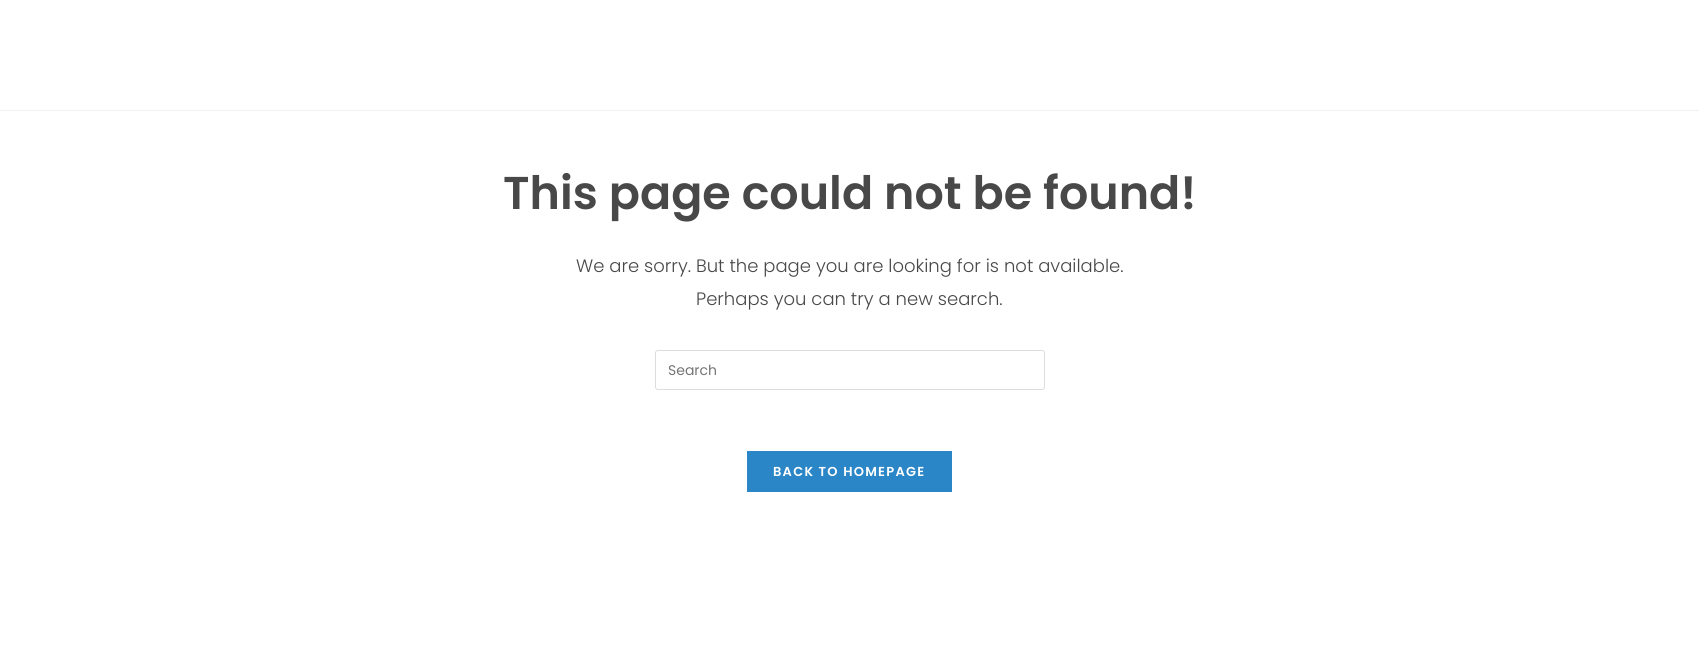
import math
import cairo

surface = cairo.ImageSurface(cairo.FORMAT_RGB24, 1699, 669)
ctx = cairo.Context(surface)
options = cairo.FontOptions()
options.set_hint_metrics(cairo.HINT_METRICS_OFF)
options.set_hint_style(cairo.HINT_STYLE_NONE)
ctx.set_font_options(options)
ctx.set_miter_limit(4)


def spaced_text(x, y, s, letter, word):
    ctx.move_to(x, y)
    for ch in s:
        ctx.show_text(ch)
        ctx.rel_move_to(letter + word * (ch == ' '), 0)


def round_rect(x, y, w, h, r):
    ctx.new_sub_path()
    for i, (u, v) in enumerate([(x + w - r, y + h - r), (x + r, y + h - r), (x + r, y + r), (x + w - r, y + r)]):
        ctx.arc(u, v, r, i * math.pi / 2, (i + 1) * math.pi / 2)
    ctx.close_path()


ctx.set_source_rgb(1, 1, 1)
ctx.paint()
ctx.set_source_rgb(0.945, 0.945, 0.945)
ctx.rectangle(0, 110, 1699, 1)
ctx.fill()
ctx.select_font_face("Poppins SemiBold")
ctx.set_font_size(46)
ctx.set_source_rgb(0.282, 0.282, 0.282)
ctx.move_to(503, 209)
ctx.show_text("This page could not be found!")
ctx.select_font_face("Poppins Light")
ctx.set_font_size(18)
ctx.move_to(576, 272)
ctx.show_text("We are sorry. But the page you are looking for is not available.")
ctx.move_to(696, 305)
ctx.show_text("Perhaps you can try a new search.")
round_rect(655.5, 350.5, 389, 39, 2.5)
ctx.set_source_rgb(0.867, 0.867, 0.867)
ctx.set_line_width(1)
ctx.stroke()
ctx.select_font_face("Poppins")
ctx.set_font_size(14)
ctx.set_source_rgb(0.459, 0.459, 0.459)
ctx.move_to(668, 375)
ctx.show_text("Search")
ctx.set_source_rgb(0.165, 0.525, 0.78)
ctx.rectangle(747, 451, 205, 41)
ctx.fill()
ctx.select_font_face("Poppins SemiBold")
ctx.set_font_size(13)
ctx.set_source_rgb(1, 1, 1)
spaced_text(773, 476, "BACK TO HOMEPAGE", 1.25, 0)
surface.write_to_png("page.png")
